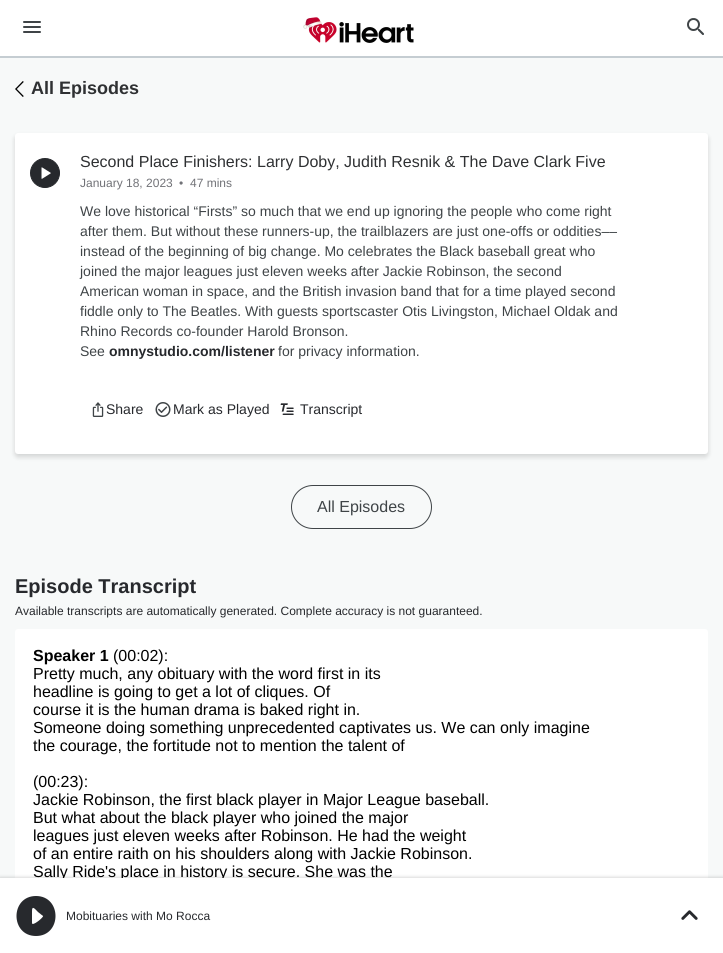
import math
import cairo

surface = cairo.ImageSurface(cairo.FORMAT_RGB24, 723, 953)
ctx = cairo.Context(surface)
options = cairo.FontOptions()
options.set_hint_metrics(cairo.HINT_METRICS_OFF)
options.set_hint_style(cairo.HINT_STYLE_NONE)
ctx.set_font_options(options)
ctx.set_miter_limit(4)


def round_rect(x, y, w, h, r):
    ctx.new_sub_path()
    for i, (u, v) in enumerate([(x + w - r, y + h - r), (x + r, y + h - r), (x + r, y + r), (x + w - r, y + r)]):
        ctx.arc(u, v, r, i * math.pi / 2, (i + 1) * math.pi / 2)
    ctx.close_path()


def shadow(x, y, w, h, r, blur, alpha):
    ctx.push_group_with_content(cairo.CONTENT_ALPHA)
    ctx.set_operator(cairo.OPERATOR_SOURCE)
    for i in range(15, -16, -2):
        e = blur * i / 6
        if min(w, h) + 2 * e > 0:
            ctx.set_source_rgba(0, 0, 0, alpha * math.erfc((i - 1) / 8.5) / 2)
            round_rect(x - e, y - e, w + 2 * e, h + 2 * e, max(0, min(r + e + blur * .6, min(w, h) / 2 + e)))
            ctx.fill()
    ctx.mask(ctx.pop_group())


def picture(path, x, y, w, h):
    ctx.save()
    ctx.set_source_surface(cairo.ImageSurface.create_from_png(path), x, y)
    ctx.rectangle(x, y, w, h)
    ctx.fill()
    ctx.restore()


ctx.set_source_rgb(0.965, 0.973, 0.976)
ctx.paint()
ctx.set_source_rgb(1, 1, 1)
ctx.rectangle(0, 0, 723, 56)
ctx.fill()
ctx.set_source_rgb(0.773, 0.804, 0.824)
ctx.rectangle(0, 56, 723, 2)
ctx.fill()
picture("img1.png", 23, 21, 18, 12)
picture("img2.png", 303, 17, 111, 26)
picture("img3.png", 687, 18, 17, 17)
picture("img4.png", 15, 81, 9, 16)
ctx.select_font_face("Liberation Sans", cairo.FONT_SLANT_NORMAL, cairo.FONT_WEIGHT_BOLD)
ctx.set_font_size(18)
ctx.set_source_rgb(0.184, 0.192, 0.2)
ctx.move_to(31, 94)
ctx.show_text("All Episodes")
ctx.set_source_rgb(0, 0, 0)
shadow(15, 136, 693, 321, 3, 2.5, 0.15)
ctx.set_source_rgb(1, 1, 1)
round_rect(15, 133, 693, 321, 3)
ctx.fill()
ctx.set_source_rgb(0.153, 0.161, 0.176)
ctx.arc(45, 173, 14.5, 0, 2 * math.pi)
ctx.fill_preserve()
ctx.set_line_width(1)
ctx.stroke()
picture("img5.png", 41, 167, 10, 12)
ctx.select_font_face("Liberation Sans")
ctx.set_font_size(16)
ctx.set_source_rgb(0.184, 0.192, 0.2)
ctx.move_to(80, 167)
ctx.show_text("Second Place Finishers: Larry Doby, Judith Resnik & The Dave Clark Five")
ctx.set_font_size(12)
ctx.set_source_rgb(0.443, 0.447, 0.467)
ctx.move_to(80, 187)
ctx.show_text("January 18, 2023")
ctx.move_to(179, 187)
ctx.show_text("•")
ctx.move_to(190, 187)
ctx.show_text("47 mins")
ctx.set_font_size(14)
ctx.set_source_rgb(0.247, 0.267, 0.278)
ctx.move_to(80, 216)
ctx.show_text("We love historical “Firsts” so much that we end up ignoring the people who come right")
ctx.move_to(80, 236)
ctx.show_text("after them. But without these runners-up, the trailblazers are just one-offs or oddities––")
ctx.move_to(80, 256)
ctx.show_text("instead of the beginning of big change. Mo celebrates the Black baseball great who")
ctx.move_to(80, 276)
ctx.show_text("joined the major leagues just eleven weeks after Jackie Robinson, the second")
ctx.move_to(80, 296)
ctx.show_text("American woman in space, and the British invasion band that for a time played second")
ctx.move_to(80, 316)
ctx.show_text("fiddle only to The Beatles. With guests sportscaster Otis Livingston, Michael Oldak and")
ctx.move_to(80, 336)
ctx.show_text("Rhino Records co-founder Harold Bronson.")
ctx.move_to(80, 356)
ctx.show_text("See")
ctx.select_font_face("Liberation Sans", cairo.FONT_SLANT_NORMAL, cairo.FONT_WEIGHT_BOLD)
ctx.set_source_rgb(0.153, 0.161, 0.176)
ctx.move_to(109, 356)
ctx.show_text("omnystudio.com/listener")
ctx.select_font_face("Liberation Sans")
ctx.set_source_rgb(0.247, 0.267, 0.278)
ctx.move_to(278, 356)
ctx.show_text("for privacy information.")
picture("img6.png", 92, 402, 12, 15)
ctx.set_source_rgb(0.153, 0.161, 0.176)
ctx.move_to(106, 414)
ctx.show_text("Share")
picture("img7.png", 155, 402, 16, 15)
ctx.move_to(173, 414)
ctx.show_text("Mark as Played")
picture("img8.png", 280, 403, 14, 12)
ctx.move_to(300, 414)
ctx.show_text("Transcript")
round_rect(291.5, 485.5, 140, 43, 21.5)
ctx.set_source_rgb(0.247, 0.267, 0.278)
ctx.stroke()
ctx.set_font_size(16)
ctx.move_to(317, 512)
ctx.show_text("All Episodes")
ctx.select_font_face("Liberation Sans", cairo.FONT_SLANT_NORMAL, cairo.FONT_WEIGHT_BOLD)
ctx.set_font_size(20)
ctx.set_source_rgb(0.153, 0.161, 0.176)
ctx.move_to(15, 593)
ctx.show_text("Episode Transcript")
ctx.select_font_face("Liberation Sans")
ctx.set_font_size(12)
ctx.move_to(15, 615)
ctx.show_text("Available transcripts are automatically generated. Complete accuracy is not guaranteed.")
ctx.set_source_rgb(1, 1, 1)
round_rect(15, 629, 693, 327, 3)
ctx.fill()
ctx.select_font_face("Liberation Sans", cairo.FONT_SLANT_NORMAL, cairo.FONT_WEIGHT_BOLD)
ctx.set_font_size(16)
ctx.set_source_rgb(0, 0, 0)
ctx.move_to(33, 661)
ctx.show_text("Speaker 1")
ctx.select_font_face("Liberation Sans")
ctx.move_to(113, 661)
ctx.show_text("(00:02):")
ctx.move_to(33, 679)
ctx.show_text("Pretty much, any obituary with the word first in its")
ctx.move_to(33, 697)
ctx.show_text("headline is going to get a lot of cliques. Of")
ctx.move_to(33, 715)
ctx.show_text("course it is the human drama is baked right in.")
ctx.move_to(33, 733)
ctx.show_text("Someone doing something unprecedented captivates us. We can only imagine")
ctx.move_to(33, 751)
ctx.show_text("the courage, the fortitude not to mention the talent of")
ctx.move_to(33, 787)
ctx.show_text("(00:23):")
ctx.move_to(33, 805)
ctx.show_text("Jackie Robinson, the first black player in Major League baseball.")
ctx.move_to(33, 823)
ctx.show_text("But what about the black player who joined the major")
ctx.move_to(33, 841)
ctx.show_text("leagues just eleven weeks after Robinson. He had the weight")
ctx.move_to(33, 859)
ctx.show_text("of an entire raith on his shoulders along with Jackie Robinson.")
ctx.move_to(33, 877)
ctx.show_text("Sally Ride's place in history is secure. She was the")
ctx.set_source_rgb(0, 0, 0)
shadow(0, 877, 723, 75, 0, 1.5, 0.15)
ctx.set_source_rgb(1, 1, 1)
ctx.rectangle(0, 878, 723, 75)
ctx.fill()
ctx.set_source_rgb(0.153, 0.161, 0.176)
ctx.new_path()
ctx.move_to(36, 896)
ctx.curve_to(10, 896, 10, 936, 36, 936)
ctx.curve_to(62, 936, 62, 896, 36, 896)
ctx.close_path()
ctx.move_to(32, 923)
ctx.line_to(32, 911)
ctx.curve_to(32, 905, 35, 909, 38, 912)
ctx.line_to(43, 916)
ctx.curve_to(44, 917, 32, 927, 32, 923)
ctx.close_path()
ctx.fill()
ctx.set_font_size(12)
ctx.move_to(66, 920)
ctx.show_text("Mobituaries with Mo Rocca")
picture("img9.png", 681, 910, 17, 10)
surface.write_to_png("page.png")
